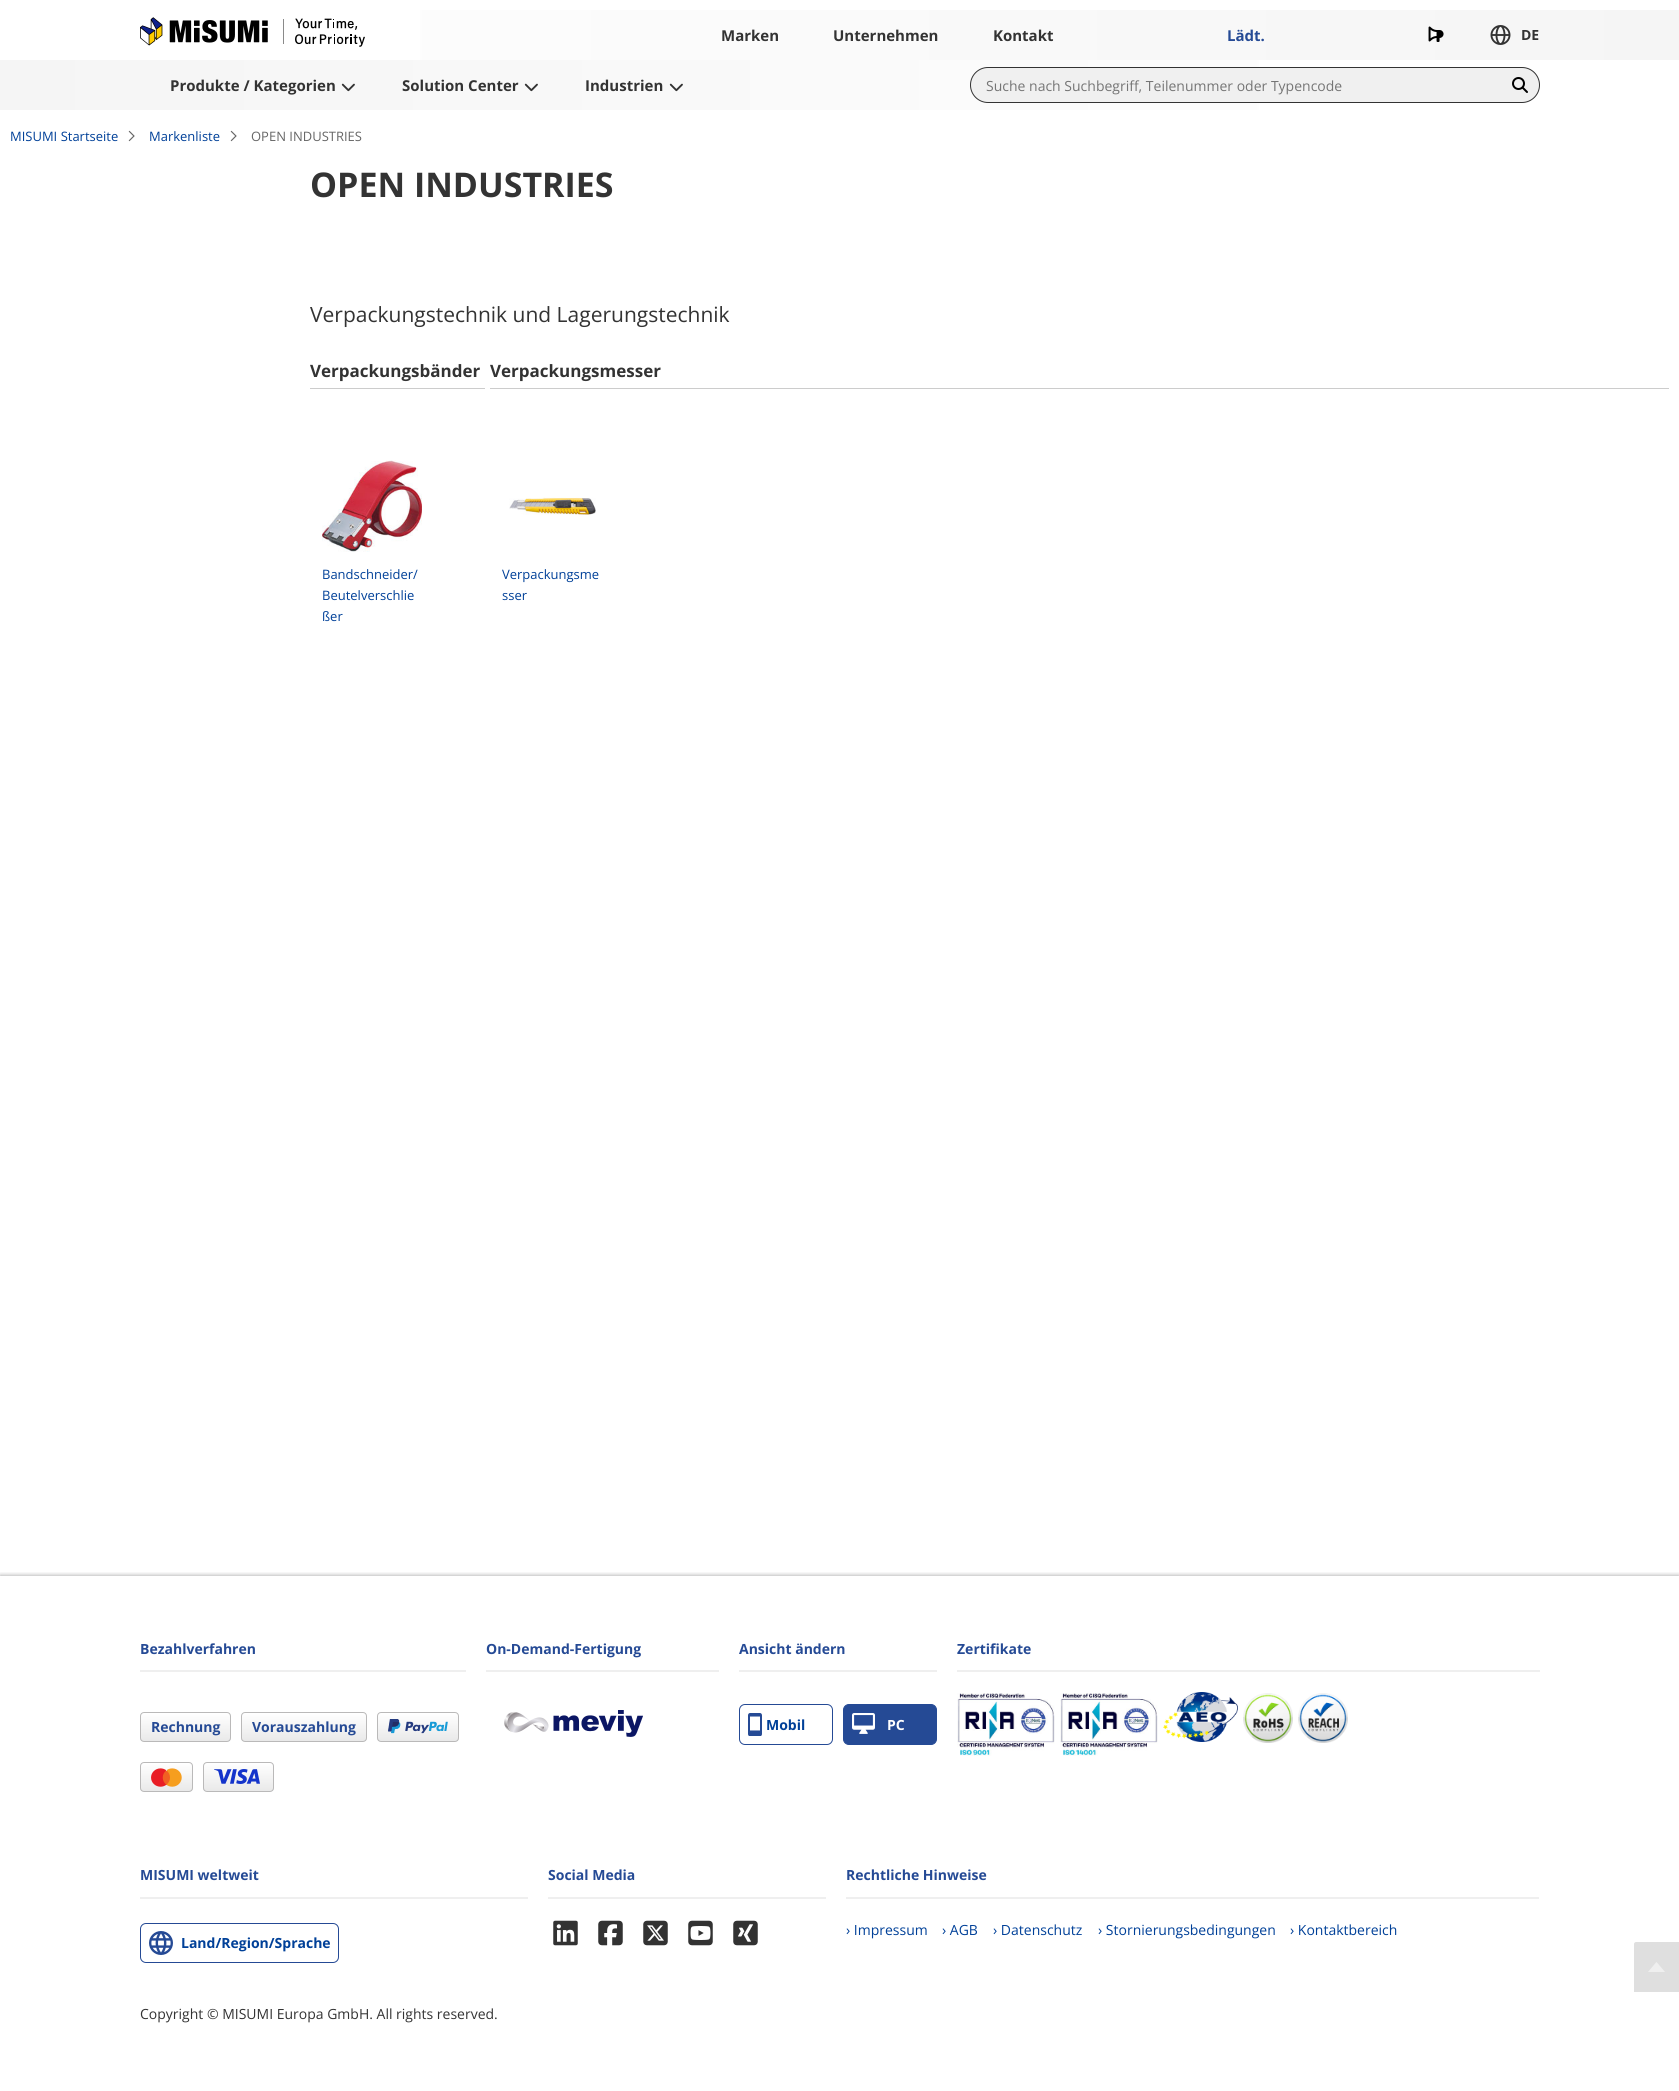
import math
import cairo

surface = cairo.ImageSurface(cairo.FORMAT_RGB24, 1679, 2091)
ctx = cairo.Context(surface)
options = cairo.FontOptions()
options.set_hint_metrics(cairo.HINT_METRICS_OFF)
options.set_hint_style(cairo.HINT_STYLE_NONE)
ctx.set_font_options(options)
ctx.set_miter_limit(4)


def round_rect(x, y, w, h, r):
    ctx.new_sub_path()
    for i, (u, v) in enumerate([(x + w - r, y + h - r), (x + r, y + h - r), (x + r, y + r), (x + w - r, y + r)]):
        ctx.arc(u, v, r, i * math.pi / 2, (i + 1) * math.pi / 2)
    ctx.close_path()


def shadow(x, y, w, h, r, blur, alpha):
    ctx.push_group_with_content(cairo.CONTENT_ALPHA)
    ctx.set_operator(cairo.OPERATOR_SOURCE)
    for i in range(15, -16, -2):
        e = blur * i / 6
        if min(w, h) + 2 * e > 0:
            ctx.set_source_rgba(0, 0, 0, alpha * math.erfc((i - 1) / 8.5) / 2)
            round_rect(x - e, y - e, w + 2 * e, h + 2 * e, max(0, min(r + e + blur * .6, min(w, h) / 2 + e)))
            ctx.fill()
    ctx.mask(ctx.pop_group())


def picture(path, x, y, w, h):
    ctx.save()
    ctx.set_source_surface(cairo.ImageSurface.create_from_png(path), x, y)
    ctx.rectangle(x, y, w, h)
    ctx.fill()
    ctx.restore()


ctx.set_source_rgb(1, 1, 1)
ctx.paint()
gradient = cairo.LinearGradient(0, 35, 1679, 35)
gradient.add_color_stop_rgba(0, 1, 1, 1, 1)
gradient.add_color_stop_rgba(1, 0.961, 0.961, 0.961, 1)
ctx.set_source(gradient)
ctx.rectangle(420, 10, 1259, 50)
ctx.fill()
picture("img1.png", 140, 17, 225, 30)
ctx.select_font_face("Open Sans", cairo.FONT_SLANT_NORMAL, cairo.FONT_WEIGHT_BOLD)
ctx.set_font_size(15)
ctx.set_source_rgb(0.2, 0.2, 0.2)
ctx.move_to(721, 41)
ctx.show_text("Marken")
ctx.move_to(833, 41)
ctx.show_text("Unternehmen")
ctx.move_to(993, 41)
ctx.show_text("Kontakt")
ctx.set_source_rgb(0.145, 0.29, 0.584)
ctx.move_to(1227, 41)
ctx.show_text("Lädt.")
gradient = cairo.LinearGradient(1433, 28, 1445, 41)
gradient.add_color_stop_rgba(0, 0.937, 0.937, 0.937, 1)
gradient.add_color_stop_rgba(0.26, 1, 1, 1, 1)
gradient.add_color_stop_rgba(0.67, 1, 1, 1, 1)
gradient.add_color_stop_rgba(1, 0.941, 0.941, 0.941, 1)
ctx.set_source(gradient)
ctx.new_path()
ctx.move_to(1444, 34.5)
ctx.line_to(1431.5, 29)
ctx.line_to(1431.5, 40)
ctx.close_path()
ctx.fill()
picture("img2.png", 1428, 26, 16, 16)
picture("img3.png", 1490, 25, 21, 20)
ctx.set_font_size(14)
ctx.set_source_rgb(0.2, 0.2, 0.2)
ctx.move_to(1521, 40)
ctx.show_text("DE")
gradient = cairo.LinearGradient(1679, 85, 0, 85)
gradient.add_color_stop_rgba(0, 1, 1, 1, 1)
gradient.add_color_stop_rgba(1, 0.961, 0.961, 0.961, 1)
ctx.set_source(gradient)
ctx.rectangle(0, 60, 1259, 50)
ctx.fill()
ctx.set_font_size(15)
ctx.set_source_rgb(0.2, 0.2, 0.2)
ctx.move_to(170, 91)
ctx.show_text("Produkte / Kategorien")
picture("img4.png", 341, 83, 14, 9)
ctx.move_to(402, 91)
ctx.show_text("Solution Center")
picture("img5.png", 524, 83, 14, 9)
ctx.move_to(585, 91)
ctx.show_text("Industrien")
picture("img6.png", 669, 83, 14, 9)
ctx.set_source_rgb(0.941, 0.941, 0.941)
round_rect(970.5, 67.5, 569, 35, 17.5)
ctx.fill_preserve()
ctx.set_source_rgb(0.2, 0.2, 0.2)
ctx.set_line_width(1)
ctx.stroke()
ctx.select_font_face("Open Sans")
ctx.set_font_size(14)
ctx.set_source_rgb(0.459, 0.459, 0.459)
ctx.move_to(986, 91)
ctx.show_text("Suche nach Suchbegriff, Teilenummer oder Typencode")
picture("img7.png", 1512, 77, 16, 16)
ctx.set_font_size(13)
ctx.set_source_rgb(0, 0.251, 0.596)
ctx.move_to(10, 141)
ctx.show_text("MISUMI Startseite")
picture("img8.png", 128, 130, 7, 12)
ctx.move_to(149, 141)
ctx.show_text("Markenliste")
picture("img8.png", 230, 130, 7, 12)
ctx.set_source_rgb(0.4, 0.4, 0.4)
ctx.move_to(251, 141)
ctx.show_text("OPEN INDUSTRIES")
ctx.select_font_face("Open Sans", cairo.FONT_SLANT_NORMAL, cairo.FONT_WEIGHT_BOLD)
ctx.set_font_size(34)
ctx.set_source_rgb(0.2, 0.2, 0.2)
ctx.move_to(310, 197)
ctx.show_text("OPEN INDUSTRIES")
ctx.select_font_face("Open Sans")
ctx.set_font_size(21)
ctx.move_to(310, 322)
ctx.show_text("Verpackungstechnik und Lagerungstechnik")
ctx.select_font_face("Open Sans", cairo.FONT_SLANT_NORMAL, cairo.FONT_WEIGHT_BOLD)
ctx.set_font_size(17)
ctx.move_to(310, 377)
ctx.show_text("Verpackungsbänder")
ctx.set_source_rgb(0.8, 0.8, 0.8)
ctx.rectangle(310, 388, 1359, 1)
ctx.fill()
picture("img9.png", 322, 460, 100, 92)
ctx.select_font_face("Open Sans")
ctx.set_font_size(13)
ctx.set_source_rgb(0, 0.251, 0.596)
ctx.move_to(322, 579)
ctx.show_text("Bandschneider/")
ctx.move_to(322, 600)
ctx.show_text("Beutelverschlie")
ctx.move_to(322, 621)
ctx.show_text("ßer")
ctx.select_font_face("Open Sans", cairo.FONT_SLANT_NORMAL, cairo.FONT_WEIGHT_BOLD)
ctx.set_font_size(17)
ctx.set_source_rgb(0.2, 0.2, 0.2)
ctx.move_to(490, 377)
ctx.show_text("Verpackungsmesser")
ctx.save()
ctx.rectangle(310, 162, 1359, 477)
ctx.clip()
ctx.rectangle(487.5, 385.5, 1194, 6)
ctx.set_source_rgb(1, 1, 1)
ctx.set_line_width(5)
ctx.stroke()
ctx.restore()
picture("img10.png", 509, 497, 87, 18)
ctx.select_font_face("Open Sans")
ctx.set_font_size(13)
ctx.set_source_rgb(0, 0.251, 0.596)
ctx.move_to(502, 579)
ctx.show_text("Verpackungsme")
ctx.move_to(502, 600)
ctx.show_text("sser")
ctx.save()
ctx.rectangle(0, 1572, 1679, 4)
ctx.clip()
ctx.set_source_rgb(0, 0, 0)
shadow(0, 1576, 1679, 515, 0, 2.5, 0.4)
ctx.restore()
ctx.set_source_rgb(0.937, 0.937, 0.937)
ctx.rectangle(140, 1670, 326, 2)
ctx.fill()
ctx.select_font_face("Open Sans", cairo.FONT_SLANT_NORMAL, cairo.FONT_WEIGHT_BOLD)
ctx.set_font_size(14)
ctx.set_source_rgb(0.145, 0.29, 0.584)
ctx.move_to(140, 1654)
ctx.show_text("Bezahlverfahren")
ctx.save()
round_rect(140, 1712, 91, 30, 4)
ctx.clip()
gradient = cairo.LinearGradient(186, 1741, 186, 1713)
gradient.add_color_stop_rgba(0, 0.914, 0.914, 0.914, 1)
gradient.add_color_stop_rgba(1, 1, 1, 1, 1)
ctx.set_source(gradient)
ctx.rectangle(140, 1713, 91, 28)
ctx.fill()
ctx.restore()
round_rect(140.5, 1712.5, 90, 29, 3.5)
ctx.set_source_rgb(0.729, 0.725, 0.725)
ctx.stroke()
ctx.set_source_rgb(0.145, 0.29, 0.584)
ctx.move_to(151, 1732)
ctx.show_text("Rechnung")
ctx.save()
round_rect(241, 1712, 126, 30, 4)
ctx.clip()
gradient = cairo.LinearGradient(304, 1741, 304, 1713)
gradient.add_color_stop_rgba(0, 0.914, 0.914, 0.914, 1)
gradient.add_color_stop_rgba(1, 1, 1, 1, 1)
ctx.set_source(gradient)
ctx.rectangle(241, 1713, 126, 28)
ctx.fill()
ctx.restore()
round_rect(241.5, 1712.5, 125, 29, 3.5)
ctx.set_source_rgb(0.729, 0.725, 0.725)
ctx.stroke()
ctx.set_source_rgb(0.145, 0.29, 0.584)
ctx.move_to(252, 1732)
ctx.show_text("Vorauszahlung")
ctx.save()
round_rect(377, 1712, 82, 30, 4)
ctx.clip()
gradient = cairo.LinearGradient(418, 1741, 418, 1713)
gradient.add_color_stop_rgba(0, 0.914, 0.914, 0.914, 1)
gradient.add_color_stop_rgba(1, 1, 1, 1, 1)
ctx.set_source(gradient)
ctx.rectangle(377, 1713, 82, 28)
ctx.fill()
ctx.restore()
round_rect(377.5, 1712.5, 81, 29, 3.5)
ctx.set_source_rgb(0.729, 0.725, 0.725)
ctx.stroke()
picture("img11.png", 388, 1719, 60, 15)
ctx.save()
round_rect(140, 1762, 53, 30, 4)
ctx.clip()
gradient = cairo.LinearGradient(167, 1791, 167, 1763)
gradient.add_color_stop_rgba(0, 0.914, 0.914, 0.914, 1)
gradient.add_color_stop_rgba(1, 1, 1, 1, 1)
ctx.set_source(gradient)
ctx.rectangle(140, 1763, 53, 28)
ctx.fill()
ctx.restore()
round_rect(140.5, 1762.5, 52, 29, 3.5)
ctx.stroke()
picture("img12.png", 151, 1768, 31, 19)
ctx.save()
round_rect(203, 1762, 71, 30, 4)
ctx.clip()
gradient = cairo.LinearGradient(239, 1791, 239, 1763)
gradient.add_color_stop_rgba(0, 0.914, 0.914, 0.914, 1)
gradient.add_color_stop_rgba(1, 1, 1, 1, 1)
ctx.set_source(gradient)
ctx.rectangle(203, 1763, 71, 28)
ctx.fill()
ctx.restore()
round_rect(203.5, 1762.5, 70, 29, 3.5)
ctx.stroke()
picture("img13.png", 214, 1769, 46, 15)
ctx.set_source_rgb(0.937, 0.937, 0.937)
ctx.rectangle(486, 1670, 233, 2)
ctx.fill()
ctx.set_source_rgb(0.145, 0.29, 0.584)
ctx.move_to(486, 1654)
ctx.show_text("On-Demand-Fertigung")
picture("img14.png", 504, 1710, 139, 27)
ctx.set_source_rgb(0.937, 0.937, 0.937)
ctx.rectangle(739, 1670, 198, 2)
ctx.fill()
ctx.set_source_rgb(0.145, 0.29, 0.584)
ctx.move_to(739, 1654)
ctx.show_text("Ansicht ändern")
round_rect(739.5, 1704.5, 93, 40, 5.5)
ctx.stroke()
picture("img15.png", 748, 1713, 14, 23)
ctx.set_source_rgb(0, 0.251, 0.596)
ctx.move_to(766, 1730)
ctx.show_text("Mobil")
ctx.set_source_rgb(0.145, 0.29, 0.584)
round_rect(843.5, 1704.5, 93, 40, 5.5)
ctx.fill_preserve()
ctx.stroke()
picture("img16.png", 852, 1713, 23, 21)
ctx.set_source_rgb(1, 1, 1)
ctx.move_to(887, 1730)
ctx.show_text("PC")
ctx.set_source_rgb(0.937, 0.937, 0.937)
ctx.rectangle(957, 1670, 583, 2)
ctx.fill()
ctx.set_source_rgb(0.145, 0.29, 0.584)
ctx.move_to(957, 1654)
ctx.show_text("Zertifikate")
picture("img17.png", 957, 1693, 98, 63)
picture("img18.png", 1060, 1693, 98, 63)
picture("img19.png", 1163, 1692, 75, 50)
picture("img20.png", 1243, 1693, 50, 50)
picture("img21.png", 1298, 1693, 50, 50)
ctx.set_source_rgb(0.937, 0.937, 0.937)
ctx.rectangle(140, 1897, 388, 2)
ctx.fill()
ctx.set_source_rgb(0.145, 0.29, 0.584)
ctx.move_to(140, 1880)
ctx.show_text("MISUMI weltweit")
picture("img22.png", 149, 1931, 24, 24)
round_rect(140.5, 1923.5, 198, 39, 5.5)
ctx.stroke()
ctx.set_source_rgb(0, 0.251, 0.596)
ctx.move_to(181, 1948)
ctx.show_text("Land/Region/Sprache")
ctx.set_source_rgb(0.937, 0.937, 0.937)
ctx.rectangle(548, 1897, 278, 2)
ctx.fill()
ctx.set_source_rgb(0.145, 0.29, 0.584)
ctx.move_to(548, 1880)
ctx.show_text("Social Media")
picture("img23.png", 553, 1920, 25, 26)
picture("img24.png", 598, 1920, 25, 26)
picture("img25.png", 643, 1920, 25, 26)
picture("img26.png", 688, 1920, 25, 26)
picture("img27.png", 733, 1920, 25, 26)
ctx.set_source_rgb(0.937, 0.937, 0.937)
ctx.rectangle(846, 1897, 693, 2)
ctx.fill()
ctx.set_source_rgb(0.145, 0.29, 0.584)
ctx.move_to(846, 1880)
ctx.show_text("Rechtliche Hinweise")
ctx.select_font_face("Open Sans")
ctx.set_source_rgb(0, 0.251, 0.596)
ctx.move_to(846, 1935)
ctx.show_text("› Impressum")
ctx.move_to(942, 1935)
ctx.show_text("› AGB")
ctx.move_to(993, 1935)
ctx.show_text("› Datenschutz")
ctx.move_to(1098, 1935)
ctx.show_text("› Stornierungsbedingungen")
ctx.move_to(1290, 1935)
ctx.show_text("› Kontaktbereich")
ctx.set_source_rgb(0.2, 0.2, 0.2)
ctx.move_to(140, 2019)
ctx.show_text("Copyright © MISUMI Europa GmbH. All rights reserved.")
ctx.set_source_rgb(0.875, 0.875, 0.875)
ctx.new_path()
ctx.move_to(1636, 1942)
ctx.line_to(1679, 1942)
ctx.line_to(1679, 1992)
ctx.line_to(1634, 1992)
ctx.line_to(1634, 1944)
ctx.curve_to(1634, 1943, 1635, 1942, 1636, 1942)
ctx.close_path()
ctx.fill()
picture("img28.png", 1648, 1962, 17, 10)
surface.write_to_png("page.png")
